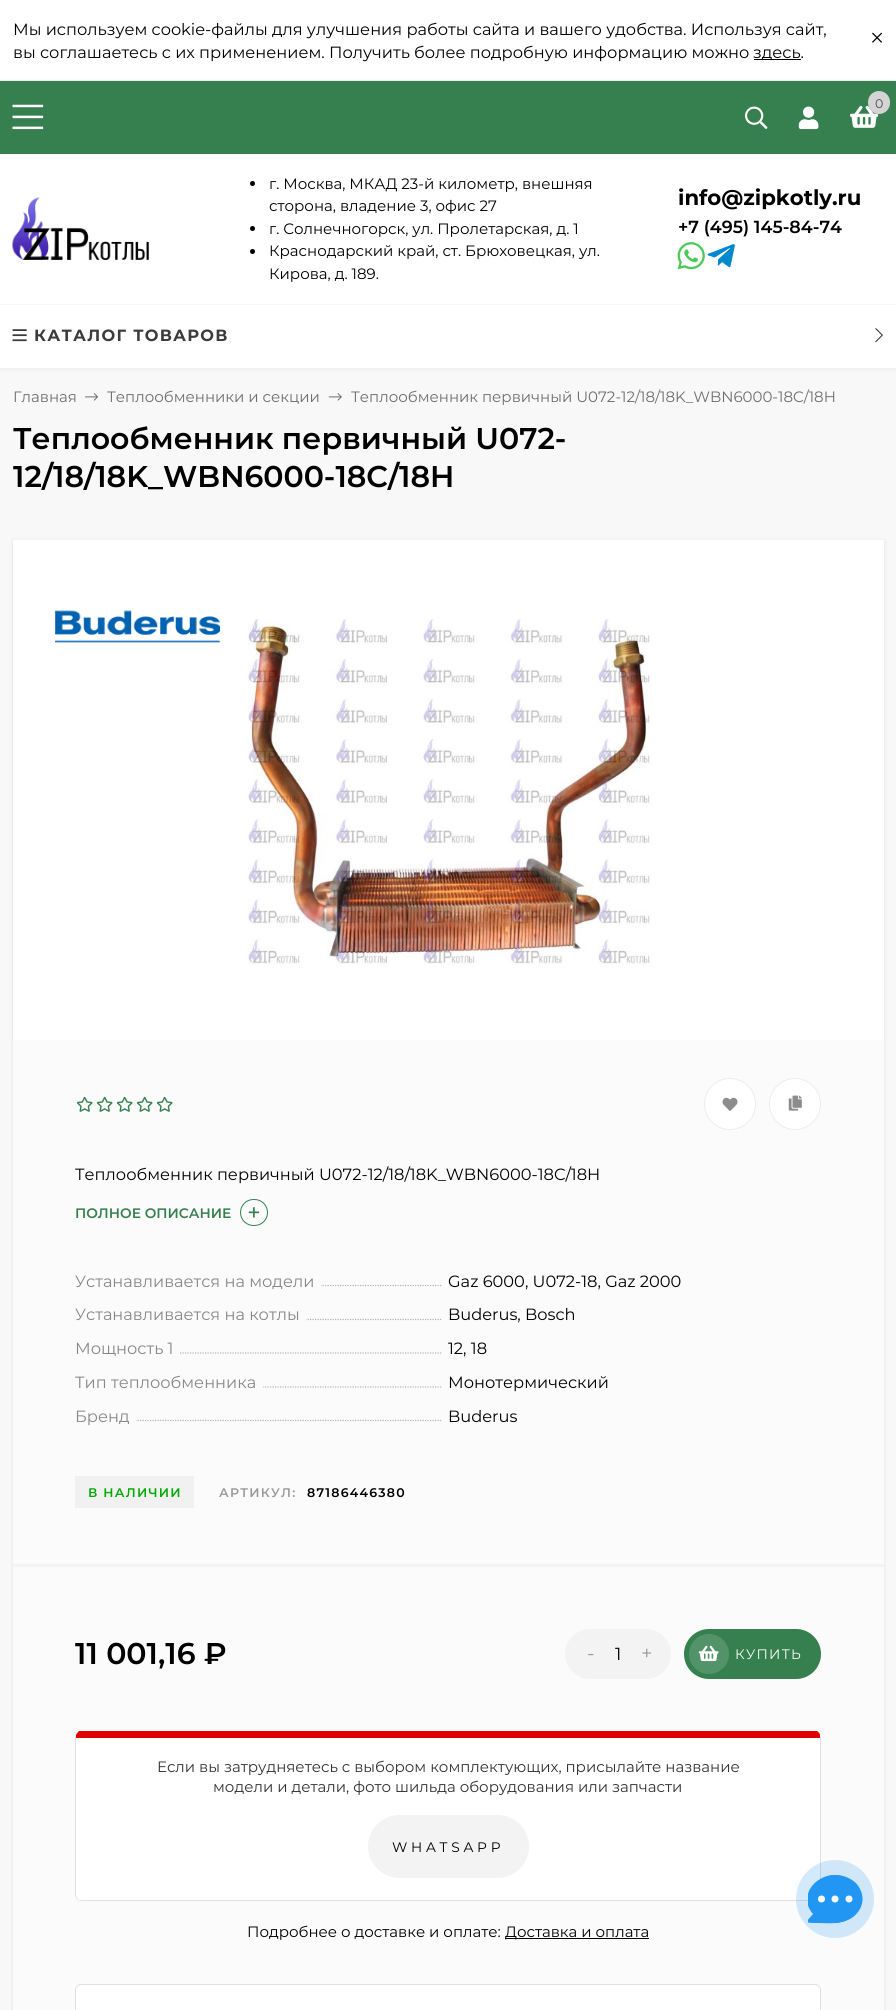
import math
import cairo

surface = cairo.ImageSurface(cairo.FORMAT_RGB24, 896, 2010)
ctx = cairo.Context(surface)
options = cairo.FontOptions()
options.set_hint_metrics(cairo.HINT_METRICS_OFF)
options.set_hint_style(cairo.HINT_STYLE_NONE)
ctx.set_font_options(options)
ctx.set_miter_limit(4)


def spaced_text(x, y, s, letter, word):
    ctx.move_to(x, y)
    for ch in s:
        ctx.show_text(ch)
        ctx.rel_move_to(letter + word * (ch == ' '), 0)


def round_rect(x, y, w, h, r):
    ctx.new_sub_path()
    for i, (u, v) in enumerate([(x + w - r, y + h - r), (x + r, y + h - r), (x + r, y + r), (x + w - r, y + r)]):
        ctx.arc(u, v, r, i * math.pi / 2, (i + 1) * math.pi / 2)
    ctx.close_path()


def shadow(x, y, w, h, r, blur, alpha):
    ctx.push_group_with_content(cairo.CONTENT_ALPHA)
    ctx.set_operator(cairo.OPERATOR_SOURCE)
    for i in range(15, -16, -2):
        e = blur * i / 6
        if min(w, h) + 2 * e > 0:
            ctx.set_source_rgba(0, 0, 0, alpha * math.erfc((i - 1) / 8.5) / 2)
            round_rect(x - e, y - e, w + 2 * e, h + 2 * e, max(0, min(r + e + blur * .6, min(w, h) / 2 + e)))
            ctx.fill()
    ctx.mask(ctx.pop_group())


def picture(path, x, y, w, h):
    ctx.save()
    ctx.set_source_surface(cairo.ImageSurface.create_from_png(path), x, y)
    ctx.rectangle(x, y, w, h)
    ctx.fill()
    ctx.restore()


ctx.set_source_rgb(0.969, 0.969, 0.969)
ctx.paint()
ctx.set_source_rgb(0.251, 0.251, 0.251)
shadow(0, 81, 896, 287, 0, 3, 0.1)
ctx.set_source_rgb(1, 1, 1)
ctx.rectangle(0, 0, 896, 80)
ctx.fill()
ctx.set_source_rgb(0.922, 0.922, 0.922)
ctx.rectangle(0, 80, 896, 1)
ctx.fill()
ctx.select_font_face("Montserrat")
ctx.set_font_size(16.25)
ctx.set_source_rgb(0, 0, 0)
ctx.move_to(13, 35)
ctx.show_text("Мы используем cookie-файлы для улучшения работы сайта и вашего удобства. Используя сайт,")
ctx.move_to(13, 58)
ctx.show_text("вы соглашаетесь с их применением. Получить более подробную информацию можно")
ctx.rectangle(754, 59, 47, 1)
ctx.fill()
ctx.move_to(753, 58)
ctx.show_text("здесь.")
ctx.select_font_face("Liberation Serif")
ctx.set_font_size(25)
ctx.move_to(870, 46)
ctx.show_text("×")
ctx.set_source_rgb(0.212, 0.502, 0.31)
ctx.rectangle(0, 81, 896, 73)
ctx.fill()
picture("img1.png", 12, 104, 32, 26)
picture("img2.png", 850, 105, 29, 23)
ctx.set_source_rgb(0.831, 0.831, 0.831)
round_rect(868, 91, 22, 23, 11)
ctx.fill()
ctx.select_font_face("Montserrat")
ctx.set_font_size(12.5)
ctx.set_source_rgb(0.29, 0.29, 0.29)
ctx.move_to(875, 108)
ctx.show_text("0")
picture("img3.png", 745, 106, 23, 23)
picture("img4.png", 798, 106, 21, 24)
ctx.set_source_rgb(1, 1, 1)
ctx.rectangle(0, 154, 896, 150)
ctx.fill()
picture("img5.png", 12, 197, 137, 63)
ctx.set_source_rgb(0, 0, 0)
ctx.arc(252.5, 183.5, 2.5, 0, 2 * math.pi)
ctx.fill()
ctx.set_font_size(15)
ctx.move_to(269, 189)
ctx.show_text("г. Москва, МКАД 23-й километр, внешняя")
ctx.move_to(269, 211)
ctx.show_text("сторона, владение 3, офис 27")
ctx.new_path()
ctx.arc(252.5, 228.5, 2.5, 0, 2 * math.pi)
ctx.fill()
ctx.move_to(269, 234)
ctx.show_text("г. Солнечногорск, ул. Пролетарская, д. 1")
ctx.new_path()
ctx.arc(252.5, 251.5, 2.5, 0, 2 * math.pi)
ctx.fill()
ctx.move_to(269, 256)
ctx.show_text("Краснодарский край, ст. Брюховецкая, ул.")
ctx.move_to(269, 279)
ctx.show_text("Кирова, д. 189.")
ctx.select_font_face("Montserrat", cairo.FONT_SLANT_NORMAL, cairo.FONT_WEIGHT_BOLD)
ctx.set_font_size(21.25)
ctx.move_to(678, 205)
ctx.show_text("info@zipkotly.ru")
ctx.select_font_face("Montserrat SemiBold")
ctx.set_font_size(17.5)
ctx.move_to(678, 233)
ctx.show_text("+7 (495) 145-84-74")
picture("img6.png", 677, 242, 28, 28)
picture("img7.png", 707, 244, 28, 23)
ctx.set_source_rgb(1, 1, 1)
ctx.rectangle(0, 305, 896, 63)
ctx.fill()
ctx.set_source_rgb(0.969, 0.969, 0.969)
ctx.rectangle(0, 304, 896, 1)
ctx.fill()
picture("img8.png", 12, 329, 15, 13)
ctx.select_font_face("Montserrat", cairo.FONT_SLANT_NORMAL, cairo.FONT_WEIGHT_BOLD)
ctx.set_font_size(16.25)
ctx.set_source_rgb(0.235, 0.235, 0.235)
spaced_text(34, 341, "КАТАЛОГ ТОВАРОВ", 1.25, 0)
picture("img9.png", 875, 328, 8, 15)
ctx.select_font_face("Montserrat")
ctx.set_font_size(15)
ctx.set_source_rgb(0.431, 0.431, 0.431)
ctx.move_to(13, 402)
ctx.show_text("Главная")
picture("img10.png", 85, 393, 13, 8)
ctx.move_to(107, 402)
ctx.show_text("Теплообменники и секции")
picture("img11.png", 328, 393, 14, 8)
ctx.move_to(351, 402)
ctx.show_text("Теплообменник первичный U072-12/18/18K_WBN6000-18C/18H")
ctx.select_font_face("Montserrat SemiBold")
ctx.set_font_size(30)
ctx.set_source_rgb(0, 0, 0)
ctx.move_to(13, 449)
ctx.show_text("Теплообменник первичный U072-")
ctx.move_to(13, 487)
ctx.show_text("12/18/18K_WBN6000-18C/18H")
ctx.set_source_rgb(0, 0, 0)
shadow(13, 541, 871, 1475, 0, 2, 0.1)
ctx.set_source_rgb(1, 1, 1)
ctx.rectangle(13, 540, 871, 500)
ctx.fill()
picture("img12.png", 55, 610, 165, 33)
picture("img13.png", 244, 618, 408, 347)
ctx.set_source_rgb(0.984, 0.984, 0.984)
ctx.rectangle(13, 1040, 871, 970)
ctx.fill()
picture("img14.png", 76, 1096, 17, 16)
picture("img14.png", 96, 1096, 17, 16)
picture("img14.png", 116, 1096, 17, 16)
picture("img14.png", 136, 1096, 17, 16)
picture("img14.png", 156, 1096, 17, 16)
ctx.set_source_rgb(1, 1, 1)
ctx.arc(730, 1104, 25.5, 0, 2 * math.pi)
ctx.fill_preserve()
ctx.set_source_rgb(0.929, 0.929, 0.929)
ctx.set_line_width(1)
ctx.stroke()
picture("img15.png", 722, 1097, 16, 14)
ctx.set_source_rgb(1, 1, 1)
ctx.arc(795, 1104, 25.5, 0, 2 * math.pi)
ctx.fill_preserve()
ctx.set_source_rgb(0.929, 0.929, 0.929)
ctx.stroke()
picture("img16.png", 788, 1095, 14, 16)
ctx.select_font_face("Montserrat")
ctx.set_font_size(16.25)
ctx.set_source_rgb(0, 0, 0)
ctx.move_to(75, 1180)
ctx.show_text("Теплообменник первичный U072-12/18/18K_WBN6000-18C/18H")
ctx.select_font_face("Montserrat SemiBold")
ctx.set_font_size(13.75)
ctx.set_source_rgb(0.212, 0.502, 0.31)
ctx.move_to(75, 1218)
ctx.show_text("ПОЛНОЕ ОПИСАНИЕ")
round_rect(240.5, 1199.5, 27, 26, 13)
ctx.stroke()
picture("img17.png", 248, 1207, 12, 11)
ctx.new_path()
ctx.move_to(75, 1285.5)
ctx.line_to(442.5, 1285.5)
ctx.set_source_rgb(0.71, 0.71, 0.71)
ctx.set_line_width(1.2)
ctx.set_dash([1.25, 1.25])
ctx.stroke()
ctx.set_source_rgb(0.984, 0.984, 0.984)
ctx.rectangle(75, 1284, 246, 3)
ctx.fill()
ctx.select_font_face("Montserrat")
ctx.set_font_size(16.25)
ctx.set_source_rgb(0.533, 0.533, 0.533)
ctx.move_to(75, 1287)
ctx.show_text("Устанавливается на модели")
ctx.set_source_rgb(0, 0, 0)
ctx.move_to(448, 1287)
ctx.show_text("Gaz 6000, U072-18, Gaz 2000")
ctx.new_path()
ctx.move_to(75, 1319.5)
ctx.line_to(442.5, 1319.5)
ctx.set_source_rgb(0.71, 0.71, 0.71)
ctx.stroke()
ctx.set_source_rgb(0.984, 0.984, 0.984)
ctx.rectangle(75, 1318, 231, 3)
ctx.fill()
ctx.set_source_rgb(0.533, 0.533, 0.533)
ctx.move_to(75, 1320)
ctx.show_text("Устанавливается на котлы")
ctx.set_source_rgb(0, 0, 0)
ctx.move_to(448, 1320)
ctx.show_text("Buderus, Bosch")
ctx.new_path()
ctx.move_to(75, 1353)
ctx.line_to(442.5, 1353)
ctx.set_source_rgb(0.71, 0.71, 0.71)
ctx.stroke()
ctx.set_source_rgb(0.984, 0.984, 0.984)
ctx.rectangle(75, 1352, 104, 2)
ctx.fill()
ctx.set_source_rgb(0.533, 0.533, 0.533)
ctx.move_to(75, 1354)
ctx.show_text("Мощность 1")
ctx.set_source_rgb(0, 0, 0)
ctx.move_to(448, 1354)
ctx.show_text("12, 18")
ctx.new_path()
ctx.move_to(75, 1387)
ctx.line_to(442.5, 1387)
ctx.set_source_rgb(0.71, 0.71, 0.71)
ctx.stroke()
ctx.set_source_rgb(0.984, 0.984, 0.984)
ctx.rectangle(75, 1386, 188, 2)
ctx.fill()
ctx.set_source_rgb(0.533, 0.533, 0.533)
ctx.move_to(75, 1388)
ctx.show_text("Тип теплообменника")
ctx.set_source_rgb(0, 0, 0)
ctx.move_to(448, 1388)
ctx.show_text("Монотермический")
ctx.new_path()
ctx.move_to(75, 1420.5)
ctx.line_to(442.5, 1420.5)
ctx.set_source_rgb(0.71, 0.71, 0.71)
ctx.stroke()
ctx.set_source_rgb(0.984, 0.984, 0.984)
ctx.rectangle(75, 1419, 61, 3)
ctx.fill()
ctx.set_source_rgb(0.533, 0.533, 0.533)
ctx.move_to(75, 1422)
ctx.show_text("Бренд")
ctx.set_source_rgb(0, 0, 0)
ctx.move_to(448, 1422)
ctx.show_text("Buderus")
ctx.set_source_rgb(0.945, 0.945, 0.945)
ctx.rectangle(75, 1476, 119, 32)
ctx.fill()
ctx.select_font_face("Montserrat SemiBold")
ctx.set_font_size(12.5)
ctx.set_source_rgb(0, 0.667, 0)
spaced_text(88, 1497, "В НАЛИЧИИ", 1.25, 0)
ctx.set_source_rgb(0.6, 0.6, 0.6)
spaced_text(219, 1497, "АРТИКУЛ:", 1.25, 0)
ctx.set_source_rgb(0, 0, 0)
spaced_text(307, 1497, "87186446380", 1.25, 0)
ctx.set_source_rgb(0.953, 0.953, 0.953)
ctx.rectangle(13, 1564, 871, 3)
ctx.fill()
ctx.set_font_size(30)
ctx.set_source_rgb(0, 0, 0)
ctx.move_to(75, 1664)
ctx.show_text("11 001,16 ₽")
ctx.set_source_rgb(0.953, 0.953, 0.953)
round_rect(565, 1629, 106, 50, 25)
ctx.fill()
ctx.select_font_face("Montserrat")
ctx.set_font_size(20)
ctx.set_source_rgb(0.6, 0.6, 0.6)
ctx.move_to(587, 1660)
ctx.show_text("-")
ctx.set_font_size(17.5)
ctx.set_source_rgb(0, 0, 0)
ctx.move_to(615, 1660)
ctx.show_text("1")
ctx.set_font_size(20)
ctx.set_source_rgb(0.6, 0.6, 0.6)
ctx.move_to(641, 1660)
ctx.show_text("+")
ctx.set_source_rgb(0.208, 0.502, 0.306)
round_rect(684, 1629, 137, 50, 25)
ctx.fill()
ctx.set_source_rgb(0.325, 0.576, 0.412)
ctx.arc(709, 1654, 20, 0, 2 * math.pi)
ctx.fill()
picture("img18.png", 698, 1645, 21, 17)
ctx.set_font_size(13.75)
ctx.set_source_rgb(1, 1, 1)
spaced_text(735, 1659, "КУПИТЬ", 1.25, 0)
ctx.new_path()
ctx.move_to(81, 1738)
ctx.line_to(820, 1738)
ctx.line_to(820, 1895)
ctx.curve_to(820, 1898, 818, 1900, 815, 1900)
ctx.line_to(81, 1900)
ctx.curve_to(78, 1900, 76, 1898, 76, 1895)
ctx.line_to(76, 1738)
ctx.close_path()
ctx.fill()
ctx.set_source_rgb(0.882, 0, 0)
ctx.new_path()
ctx.move_to(76, 1735)
ctx.curve_to(77, 1733, 78, 1732, 79, 1731)
ctx.line_to(817, 1731)
ctx.curve_to(818, 1732, 820, 1733, 820, 1735)
ctx.line_to(820, 1738)
ctx.line_to(76, 1738)
ctx.close_path()
ctx.fill()
ctx.set_source_rgb(0.878, 0.878, 0.878)
ctx.new_path()
ctx.move_to(820, 1735)
ctx.line_to(821, 1738)
ctx.line_to(821, 1895)
ctx.curve_to(821, 1897, 820, 1898, 819, 1899)
ctx.line_to(820, 1896)
ctx.line_to(820, 1738)
ctx.close_path()
ctx.fill()
ctx.new_path()
ctx.move_to(819, 1899)
ctx.curve_to(818, 1900, 816, 1901, 815, 1901)
ctx.line_to(81, 1901)
ctx.curve_to(80, 1901, 78, 1900, 77, 1899)
ctx.line_to(78, 1899)
ctx.curve_to(78, 1900, 80, 1900, 81, 1900)
ctx.line_to(815, 1900)
ctx.curve_to(816, 1900, 818, 1900, 819, 1899)
ctx.close_path()
ctx.fill()
ctx.new_path()
ctx.move_to(75, 1738)
ctx.line_to(75, 1896)
ctx.line_to(77, 1899)
ctx.line_to(78, 1899)
ctx.line_to(76, 1896)
ctx.line_to(76, 1738)
ctx.line_to(76, 1735)
ctx.close_path()
ctx.fill()
ctx.set_font_size(15)
ctx.set_source_rgb(0.2, 0.2, 0.2)
ctx.move_to(157, 1772)
ctx.show_text("Если вы затрудняетесь с выбором комплектующих, присылайте название")
ctx.move_to(213, 1792)
ctx.show_text("модели и детали, фото шильда оборудования или запчасти")
ctx.set_source_rgb(0.953, 0.953, 0.953)
round_rect(368, 1815, 161, 63, 31.5)
ctx.fill()
ctx.set_font_size(13.75)
ctx.set_source_rgb(0, 0, 0)
spaced_text(392, 1852, "WHATSAPP", 3.75, 0)
ctx.set_font_size(15)
ctx.move_to(247, 1937)
ctx.show_text("Подробнее о доставке и оплате:")
ctx.rectangle(505, 1938, 144, 1)
ctx.fill()
ctx.move_to(505, 1937)
ctx.show_text("Доставка и оплата")
ctx.set_source_rgb(1, 1, 1)
round_rect(75.5, 1984.5, 745, 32, 5.5)
ctx.fill_preserve()
ctx.set_source_rgb(0.878, 0.878, 0.878)
ctx.set_line_width(1)
ctx.set_dash([])
ctx.stroke()
ctx.set_source_rgba(0.129, 0.588, 0.953, 0.2)
ctx.arc(835, 1899, 39, 0, 2 * math.pi)
ctx.fill()
ctx.arc(835, 1899, 23.5, 0, 2 * math.pi)
ctx.set_source_rgb(0.129, 0.588, 0.953)
ctx.stroke()
ctx.save()
ctx.rectangle(808, 1871, 55, 55)
ctx.clip()
ctx.new_path()
ctx.move_to(835, 1875)
ctx.curve_to(814, 1875, 798, 1897, 813, 1914)
ctx.curve_to(805, 1923, 804, 1923, 818, 1923)
ctx.curve_to(825, 1923, 833, 1924, 841, 1922)
ctx.curve_to(856, 1920, 868, 1904, 860, 1889)
ctx.curve_to(856, 1880, 845, 1875, 835, 1875)
ctx.close_path()
ctx.fill()
ctx.restore()
ctx.set_source_rgb(0.98, 0.98, 0.98)
ctx.arc(835, 1899, 3.5, 0, 2 * math.pi)
ctx.fill()
ctx.arc(821.5, 1899, 3.5, 0, 2 * math.pi)
ctx.fill()
ctx.arc(849, 1899, 3.5, 0, 2 * math.pi)
ctx.fill()
surface.write_to_png("page.png")
